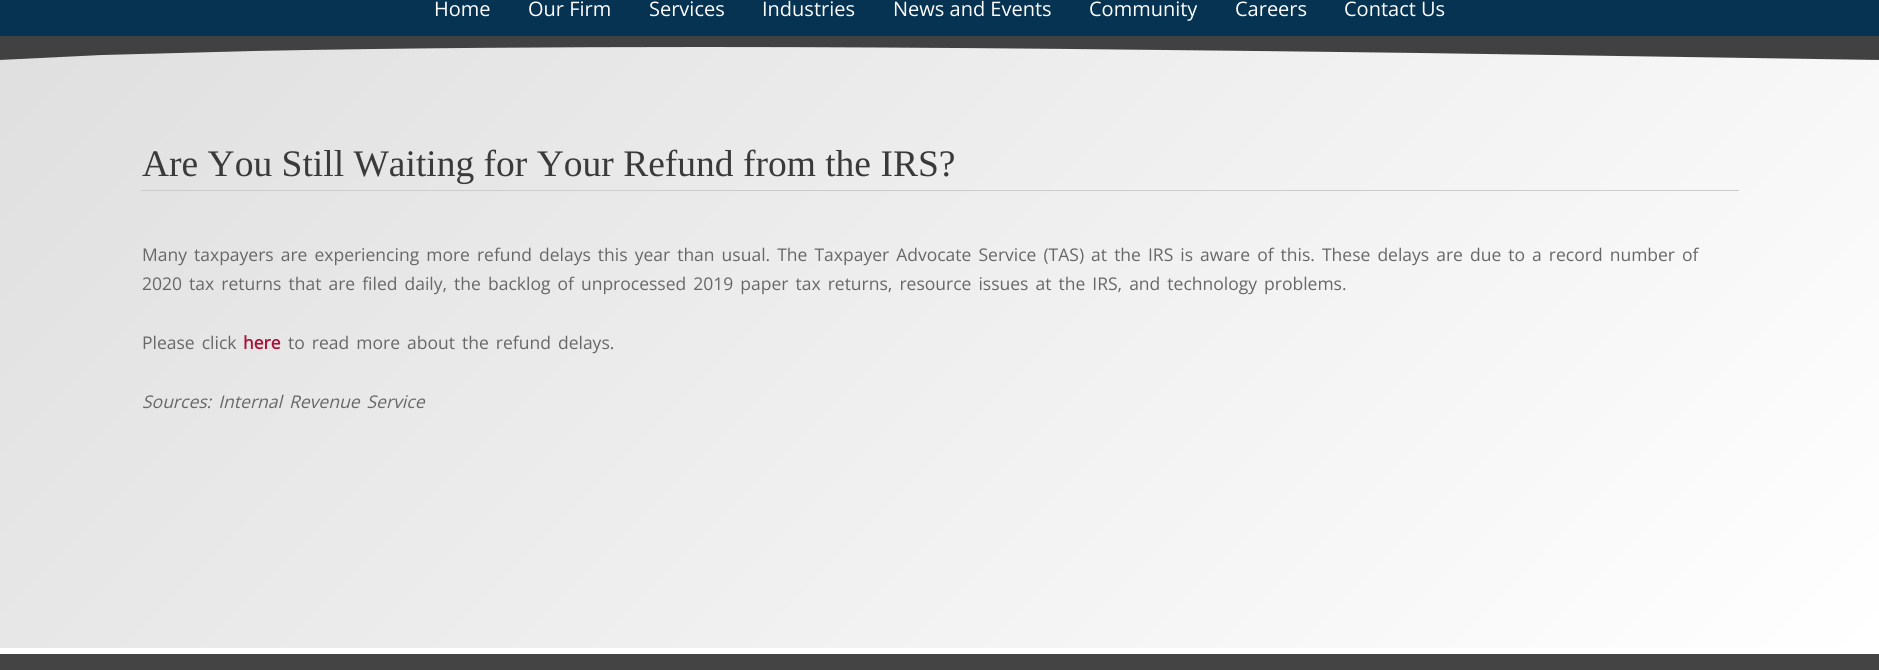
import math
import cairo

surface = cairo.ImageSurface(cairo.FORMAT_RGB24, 1879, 670)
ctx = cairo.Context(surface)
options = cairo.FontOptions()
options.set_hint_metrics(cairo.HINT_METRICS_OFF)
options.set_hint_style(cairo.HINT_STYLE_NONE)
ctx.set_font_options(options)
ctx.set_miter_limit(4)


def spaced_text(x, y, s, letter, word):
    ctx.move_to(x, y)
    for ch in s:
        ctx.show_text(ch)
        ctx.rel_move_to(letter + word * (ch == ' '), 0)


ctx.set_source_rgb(1, 1, 1)
ctx.paint()
ctx.set_source_rgb(0.027, 0.2, 0.322)
ctx.rectangle(0, 0, 1879, 36)
ctx.fill()
ctx.select_font_face("Open Sans")
ctx.set_font_size(20)
ctx.set_source_rgb(1, 1, 1)
ctx.move_to(434, 16)
ctx.show_text("Home")
ctx.move_to(528, 16)
ctx.show_text("Our Firm")
ctx.move_to(649, 16)
ctx.show_text("Services")
ctx.move_to(762, 16)
ctx.show_text("Industries")
ctx.move_to(893, 16)
ctx.show_text("News and Events")
ctx.move_to(1089, 16)
ctx.show_text("Community")
ctx.move_to(1235, 16)
ctx.show_text("Careers")
ctx.move_to(1344, 16)
ctx.show_text("Contact Us")
gradient = cairo.LinearGradient(1563, 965, 317, -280)
gradient.add_color_stop_rgba(0, 1, 1, 1, 1)
gradient.add_color_stop_rgba(1, 0.875, 0.875, 0.875, 1)
ctx.set_source(gradient)
ctx.rectangle(0, 47, 1879, 601)
ctx.fill()
ctx.set_source_rgb(0.255, 0.255, 0.255)
ctx.new_path()
ctx.move_to(-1, 60)
ctx.line_to(101, 55)
ctx.line_to(253, 51)
ctx.curve_to(403, 48, 553, 47, 702, 47)
ctx.curve_to(941, 47, 1179, 50, 1418, 53)
ctx.line_to(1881, 60)
ctx.line_to(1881, 36)
ctx.line_to(-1, 36)
ctx.close_path()
ctx.fill()
ctx.select_font_face("Liberation Serif")
ctx.set_font_size(37.5)
ctx.set_source_rgb(0.227, 0.227, 0.227)
ctx.move_to(142, 176)
ctx.show_text("Are You Still Waiting for Your Refund from the IRS?")
ctx.set_source_rgb(0.8, 0.8, 0.8)
ctx.rectangle(141, 190, 1598, 1)
ctx.fill()
ctx.select_font_face("Open Sans")
ctx.set_font_size(17.5)
ctx.set_source_rgb(0.404, 0.404, 0.404)
spaced_text(142, 261, "Many taxpayers are experiencing more refund delays this year than usual. The Taxpayer Advocate Service (TAS) at the IRS is aware of this. These delays are due to a record number of", 0, 2.5)
spaced_text(142, 290, "2020 tax returns that are filed daily, the backlog of unprocessed 2019 paper tax returns, resource issues at the IRS, and technology problems.", 0, 2.5)
spaced_text(142, 349, "Please click", 0, 2.5)
ctx.select_font_face("Open Sans", cairo.FONT_SLANT_NORMAL, cairo.FONT_WEIGHT_BOLD)
ctx.set_source_rgb(0.667, 0.071, 0.212)
ctx.move_to(243, 349)
ctx.show_text("here")
ctx.select_font_face("Open Sans")
ctx.set_source_rgb(0.404, 0.404, 0.404)
spaced_text(288, 349, "to read more about the refund delays.", 0, 2.5)
ctx.select_font_face("Open Sans", cairo.FONT_SLANT_ITALIC)
spaced_text(142, 408, "Sources: Internal Revenue Service", 0, 2.5)
ctx.set_source_rgb(0.267, 0.267, 0.267)
ctx.rectangle(0, 654, 1879, 16)
ctx.fill()
surface.write_to_png("page.png")
